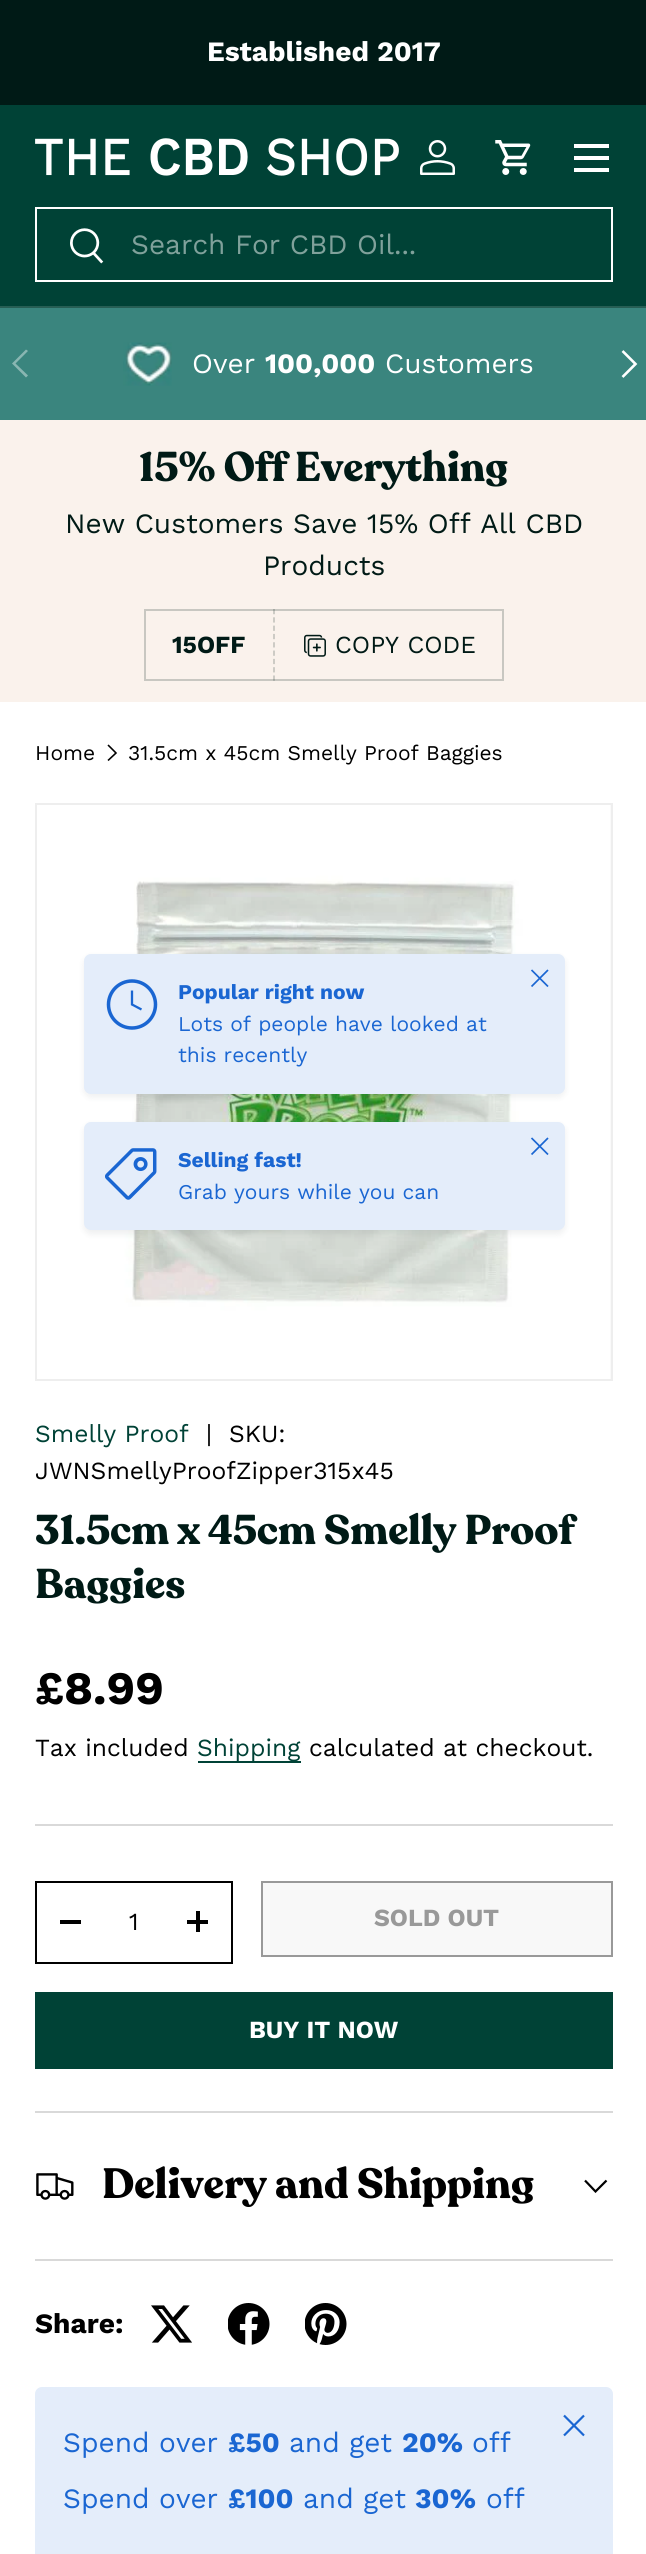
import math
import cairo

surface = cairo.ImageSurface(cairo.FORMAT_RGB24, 646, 2554)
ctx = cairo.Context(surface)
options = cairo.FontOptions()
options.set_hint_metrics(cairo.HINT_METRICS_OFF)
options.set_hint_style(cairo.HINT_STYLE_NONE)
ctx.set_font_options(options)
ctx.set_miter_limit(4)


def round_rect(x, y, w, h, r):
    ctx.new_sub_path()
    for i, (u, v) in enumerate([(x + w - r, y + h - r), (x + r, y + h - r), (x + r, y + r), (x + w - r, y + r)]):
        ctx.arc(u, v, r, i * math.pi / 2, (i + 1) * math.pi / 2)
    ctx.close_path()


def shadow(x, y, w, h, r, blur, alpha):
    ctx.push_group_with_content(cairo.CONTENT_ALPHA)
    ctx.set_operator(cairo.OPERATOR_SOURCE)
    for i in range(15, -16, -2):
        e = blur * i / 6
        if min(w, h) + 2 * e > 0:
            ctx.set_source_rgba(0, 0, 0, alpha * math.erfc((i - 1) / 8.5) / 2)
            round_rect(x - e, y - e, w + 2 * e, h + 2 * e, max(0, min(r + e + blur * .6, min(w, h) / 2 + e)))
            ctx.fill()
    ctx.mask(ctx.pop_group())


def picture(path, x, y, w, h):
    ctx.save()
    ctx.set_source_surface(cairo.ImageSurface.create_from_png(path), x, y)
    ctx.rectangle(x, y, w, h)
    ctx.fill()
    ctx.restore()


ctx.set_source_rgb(1, 1, 1)
ctx.paint()
ctx.set_source_rgb(0, 0.102, 0.086)
ctx.rectangle(0, 0, 646, 105)
ctx.fill()
ctx.select_font_face("Work Sans", cairo.FONT_SLANT_NORMAL, cairo.FONT_WEIGHT_BOLD)
ctx.set_font_size(28)
ctx.set_source_rgb(1, 1, 1)
ctx.move_to(207, 61)
ctx.show_text("Established 2017")
ctx.set_source_rgb(0, 0.259, 0.212)
ctx.rectangle(0, 105, 646, 201)
ctx.fill()
ctx.set_source_rgb(0.149, 0.369, 0.329)
ctx.rectangle(0, 306, 646, 2)
ctx.fill()
picture("img1.png", 35, 138, 364, 38)
picture("img2.png", 420, 140, 35, 35)
picture("img3.png", 495, 140, 36, 35)
ctx.set_source_rgb(1, 1, 1)
ctx.rectangle(574, 144, 35, 4)
ctx.fill()
ctx.rectangle(574, 168, 35, 4)
ctx.fill()
ctx.rectangle(574, 156, 35, 4)
ctx.fill()
ctx.rectangle(36, 208, 576, 73)
ctx.stroke()
picture("img4.png", 70, 228, 34, 36)
ctx.select_font_face("Work Sans")
ctx.set_source_rgb(0.502, 0.631, 0.608)
ctx.move_to(131, 254)
ctx.show_text("Search For CBD Oil...")
ctx.set_source_rgb(0.227, 0.522, 0.494)
ctx.rectangle(0, 308, 646, 112)
ctx.fill()
ctx.set_source_rgb(0.537, 0.714, 0.698)
ctx.new_path()
ctx.move_to(12, 363.5)
ctx.line_to(26, 349.5)
ctx.line_to(28, 351)
ctx.line_to(15.5, 363.5)
ctx.line_to(28, 375.5)
ctx.line_to(26, 377.5)
ctx.close_path()
ctx.fill()
ctx.new_path()
ctx.move_to(622.5, 351)
ctx.line_to(635.5, 364)
ctx.line_to(622.5, 377)
ctx.set_source_rgb(1, 1, 1)
ctx.set_line_width(2.6)
ctx.stroke()
picture("img5.png", 123, 342, 49, 44)
ctx.move_to(192, 373)
ctx.show_text("Over")
ctx.select_font_face("Work Sans", cairo.FONT_SLANT_NORMAL, cairo.FONT_WEIGHT_BOLD)
ctx.move_to(265, 373)
ctx.show_text("100,000")
ctx.select_font_face("Work Sans")
ctx.move_to(385, 373)
ctx.show_text("Customers")
ctx.set_source_rgb(0.98, 0.949, 0.925)
ctx.rectangle(0, 420, 646, 282)
ctx.fill()
ctx.select_font_face("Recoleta", cairo.FONT_SLANT_NORMAL, cairo.FONT_WEIGHT_BOLD)
ctx.set_font_size(41.25)
ctx.set_source_rgb(0, 0.102, 0.086)
ctx.move_to(139, 481)
ctx.show_text("15% Off Everything")
ctx.select_font_face("Work Sans")
ctx.set_font_size(28)
ctx.move_to(65, 533)
ctx.show_text("New Customers Save 15% Off All CBD")
ctx.move_to(263, 575)
ctx.show_text("Products")
ctx.rectangle(145, 610, 358, 70)
ctx.set_source_rgb(0.784, 0.78, 0.757)
ctx.set_line_width(2)
ctx.stroke()
ctx.select_font_face("Work Sans", cairo.FONT_SLANT_NORMAL, cairo.FONT_WEIGHT_BOLD)
ctx.set_font_size(24.6)
ctx.set_source_rgb(0, 0.102, 0.086)
ctx.move_to(172, 653)
ctx.show_text("15OFF")
ctx.new_path()
ctx.move_to(274, 609)
ctx.line_to(274, 681)
ctx.set_source_rgba(0, 0.102, 0.086, 0.2)
ctx.set_line_width(1.8)
ctx.set_dash([5.25, 3.06])
ctx.stroke()
picture("img6.png", 304, 634, 22, 23)
ctx.select_font_face("Work Sans")
ctx.set_font_size(24.5)
ctx.set_source_rgb(0, 0.102, 0.086)
ctx.move_to(335, 653)
ctx.show_text("COPY CODE")
ctx.set_font_size(21)
ctx.set_source_rgb(0, 0, 0)
ctx.move_to(35, 760)
ctx.show_text("Home")
ctx.new_path()
ctx.move_to(108, 745)
ctx.line_to(116, 753)
ctx.line_to(108, 760.5)
ctx.set_line_width(1.6)
ctx.set_dash([])
ctx.stroke()
ctx.move_to(128, 760)
ctx.show_text("31.5cm x 45cm Smelly Proof Baggies")
ctx.set_source_rgb(0.957, 0.957, 0.957)
ctx.rectangle(610, 805, 1, 574)
ctx.fill()
ctx.rectangle(36, 804, 576, 576)
ctx.set_source_rgb(0.933, 0.933, 0.933)
ctx.set_line_width(2)
ctx.stroke()
picture("img7.png", 37, 805, 574, 574)
ctx.set_source_rgb(0.129, 0.169, 0.212)
shadow(84, 957, 481, 140, 7, 3.5, 0.08)
ctx.set_source_rgb(0.894, 0.929, 0.98)
round_rect(84, 954, 481, 140, 7)
ctx.fill()
ctx.arc(132, 1004.5, 23.5, 0, 2 * math.pi)
ctx.set_source_rgb(0.102, 0.4, 0.824)
ctx.set_line_width(3.5)
ctx.stroke()
ctx.new_path()
ctx.move_to(132, 990.5)
ctx.line_to(132, 1004.5)
ctx.line_to(141.5, 1009.5)
ctx.set_line_width(2.3)
ctx.stroke()
ctx.select_font_face("Work Sans", cairo.FONT_SLANT_NORMAL, cairo.FONT_WEIGHT_BOLD)
ctx.move_to(178, 999)
ctx.show_text("Popular right now")
ctx.select_font_face("Work Sans")
ctx.move_to(178, 1031)
ctx.show_text("Lots of people have looked at")
ctx.move_to(178, 1062)
ctx.show_text("this recently")
ctx.new_path()
ctx.move_to(531.5, 986.5)
ctx.line_to(548, 970)
ctx.move_to(531.5, 970)
ctx.line_to(548, 986.5)
ctx.set_line_width(1.7)
ctx.set_line_join(cairo.LINE_JOIN_ROUND)
ctx.stroke()
ctx.set_source_rgb(0.129, 0.169, 0.212)
shadow(84, 1125, 481, 109, 7, 3.5, 0.08)
ctx.set_source_rgb(0.894, 0.929, 0.98)
round_rect(84, 1122, 481, 108, 7)
ctx.fill()
picture("img8.png", 105, 1148, 52, 52)
ctx.select_font_face("Work Sans", cairo.FONT_SLANT_NORMAL, cairo.FONT_WEIGHT_BOLD)
ctx.set_source_rgb(0.102, 0.4, 0.824)
ctx.move_to(178, 1167)
ctx.show_text("Selling fast!")
ctx.select_font_face("Work Sans")
ctx.move_to(178, 1199)
ctx.show_text("Grab yours while you can")
ctx.new_path()
ctx.move_to(531.5, 1154.5)
ctx.line_to(548, 1138)
ctx.move_to(531.5, 1138)
ctx.line_to(548, 1154.5)
ctx.stroke()
ctx.set_font_size(24.6)
ctx.set_source_rgb(0, 0.259, 0.212)
ctx.move_to(35, 1442)
ctx.show_text("Smelly Proof")
ctx.set_source_rgb(0, 0, 0)
ctx.move_to(206, 1442)
ctx.show_text("|")
ctx.move_to(229, 1442)
ctx.show_text("SKU:")
ctx.move_to(35, 1479)
ctx.show_text("JWNSmellyProofZipper315x45")
ctx.select_font_face("Recoleta", cairo.FONT_SLANT_NORMAL, cairo.FONT_WEIGHT_BOLD)
ctx.set_font_size(41.25)
ctx.set_source_rgb(0, 0.102, 0.086)
ctx.move_to(35, 1544)
ctx.show_text("31.5cm x 45cm Smelly Proof")
ctx.move_to(35, 1598)
ctx.show_text("Baggies")
ctx.select_font_face("Work Sans", cairo.FONT_SLANT_NORMAL, cairo.FONT_WEIGHT_BOLD)
ctx.set_font_size(46.5)
ctx.set_source_rgb(0, 0, 0)
ctx.move_to(35, 1704)
ctx.show_text("£8.99")
ctx.select_font_face("Work Sans")
ctx.set_font_size(24.6)
ctx.move_to(35, 1756)
ctx.show_text("Tax included")
ctx.set_source_rgb(0, 0.259, 0.212)
ctx.rectangle(198, 1761, 103, 2)
ctx.fill()
ctx.move_to(197, 1756)
ctx.show_text("Shipping")
ctx.set_source_rgb(0, 0, 0)
ctx.move_to(309, 1756)
ctx.show_text("calculated at checkout.")
ctx.set_source_rgb(0.851, 0.851, 0.851)
ctx.rectangle(35, 1824, 578, 2)
ctx.fill()
ctx.rectangle(36, 1882, 196, 81)
ctx.set_source_rgb(0, 0, 0)
ctx.set_line_width(2)
ctx.set_line_join(cairo.LINE_JOIN_MITER)
ctx.stroke()
ctx.rectangle(60, 1920, 21, 4)
ctx.fill()
ctx.move_to(129, 1930)
ctx.show_text("1")
ctx.rectangle(187, 1920, 21, 4)
ctx.fill()
ctx.rectangle(196, 1911, 4, 21)
ctx.fill()
gradient = cairo.LinearGradient(285, 1794, 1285, 2044)
gradient.add_color_stop_rgba(0.6, 0.973, 0.973, 0.973, 1)
gradient.add_color_stop_rgba(0.6, 1, 1, 1, 1)
gradient.add_color_stop_rgba(1, 1, 1, 1, 1)
ctx.set_source(gradient)
ctx.rectangle(263, 1883, 348, 72)
ctx.fill()
ctx.rectangle(262, 1882, 350, 74)
ctx.set_source_rgb(0.6, 0.6, 0.6)
ctx.stroke()
ctx.select_font_face("Work Sans", cairo.FONT_SLANT_NORMAL, cairo.FONT_WEIGHT_BOLD)
ctx.move_to(374, 1926)
ctx.show_text("SOLD OUT")
gradient = cairo.LinearGradient(-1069, 1826, 569, 2234)
gradient.add_color_stop_rgba(0.6, 0.165, 0.412, 0.369, 1)
gradient.add_color_stop_rgba(0.6, 0, 0.259, 0.212, 1)
gradient.add_color_stop_rgba(1, 0, 0.259, 0.212, 1)
ctx.set_source(gradient)
ctx.rectangle(37, 1994, 574, 73)
ctx.fill()
ctx.rectangle(36, 1993, 576, 75)
ctx.set_source_rgb(0, 0.259, 0.212)
ctx.stroke()
ctx.set_source_rgb(1, 1, 1)
ctx.move_to(249, 2038)
ctx.show_text("BUY IT NOW")
ctx.set_source_rgb(0.851, 0.851, 0.851)
ctx.rectangle(35, 2111, 578, 2)
ctx.fill()
ctx.rectangle(35, 2259, 578, 2)
ctx.fill()
picture("img9.png", 36, 2173, 38, 27)
ctx.select_font_face("Recoleta", cairo.FONT_SLANT_NORMAL, cairo.FONT_WEIGHT_BOLD)
ctx.set_font_size(42)
ctx.set_source_rgb(0, 0, 0)
ctx.move_to(102, 2198)
ctx.show_text("Delivery and Shipping")
ctx.new_path()
ctx.move_to(606.5, 2180.5)
ctx.line_to(595.5, 2191.5)
ctx.line_to(585, 2180.5)
ctx.set_line_width(2.2)
ctx.stroke()
ctx.select_font_face("Work Sans", cairo.FONT_SLANT_NORMAL, cairo.FONT_WEIGHT_BOLD)
ctx.set_font_size(28)
ctx.move_to(35, 2333)
ctx.show_text("Share:")
picture("img10.png", 151, 2305, 41, 38)
picture("img11.png", 228, 2303, 42, 42)
picture("img12.png", 305, 2303, 42, 42)
ctx.set_source_rgb(0.894, 0.929, 0.98)
round_rect(35, 2387, 578, 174, 7)
ctx.fill()
ctx.new_path()
ctx.move_to(564, 2435.5)
ctx.line_to(584, 2415.5)
ctx.move_to(564, 2415.5)
ctx.line_to(584, 2435.5)
ctx.set_source_rgb(0.102, 0.4, 0.824)
ctx.set_line_join(cairo.LINE_JOIN_ROUND)
ctx.stroke()
ctx.select_font_face("Work Sans")
ctx.move_to(63, 2452)
ctx.show_text("Spend over")
ctx.select_font_face("Work Sans", cairo.FONT_SLANT_NORMAL, cairo.FONT_WEIGHT_BOLD)
ctx.move_to(228, 2452)
ctx.show_text("£50")
ctx.select_font_face("Work Sans")
ctx.move_to(289, 2452)
ctx.show_text("and get")
ctx.select_font_face("Work Sans", cairo.FONT_SLANT_NORMAL, cairo.FONT_WEIGHT_BOLD)
ctx.move_to(402, 2452)
ctx.show_text("20%")
ctx.select_font_face("Work Sans")
ctx.move_to(472, 2452)
ctx.show_text("off")
ctx.move_to(63, 2508)
ctx.show_text("Spend over")
ctx.select_font_face("Work Sans", cairo.FONT_SLANT_NORMAL, cairo.FONT_WEIGHT_BOLD)
ctx.move_to(228, 2508)
ctx.show_text("£100")
ctx.select_font_face("Work Sans")
ctx.move_to(303, 2508)
ctx.show_text("and get")
ctx.select_font_face("Work Sans", cairo.FONT_SLANT_NORMAL, cairo.FONT_WEIGHT_BOLD)
ctx.move_to(415, 2508)
ctx.show_text("30%")
ctx.select_font_face("Work Sans")
ctx.move_to(486, 2508)
ctx.show_text("off")
surface.write_to_png("page.png")
